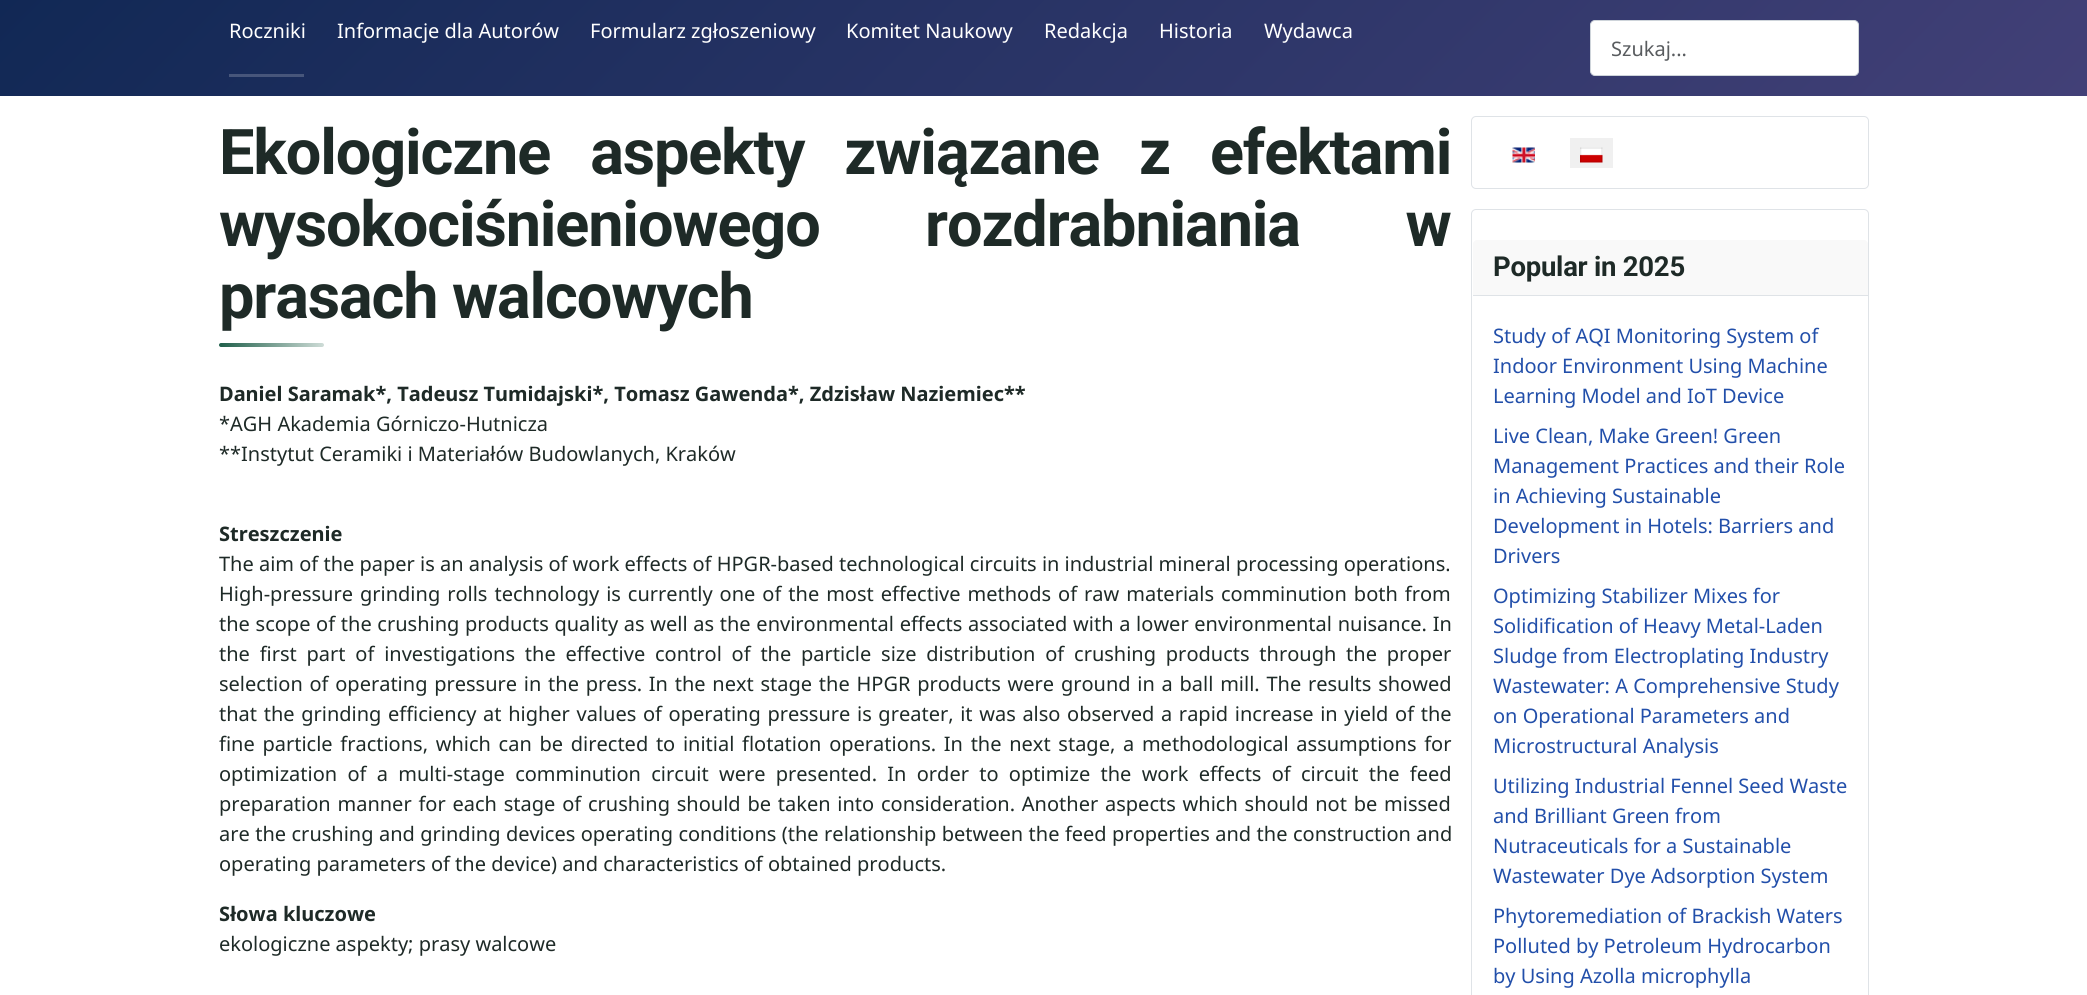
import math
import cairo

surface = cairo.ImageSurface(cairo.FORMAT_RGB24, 2087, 995)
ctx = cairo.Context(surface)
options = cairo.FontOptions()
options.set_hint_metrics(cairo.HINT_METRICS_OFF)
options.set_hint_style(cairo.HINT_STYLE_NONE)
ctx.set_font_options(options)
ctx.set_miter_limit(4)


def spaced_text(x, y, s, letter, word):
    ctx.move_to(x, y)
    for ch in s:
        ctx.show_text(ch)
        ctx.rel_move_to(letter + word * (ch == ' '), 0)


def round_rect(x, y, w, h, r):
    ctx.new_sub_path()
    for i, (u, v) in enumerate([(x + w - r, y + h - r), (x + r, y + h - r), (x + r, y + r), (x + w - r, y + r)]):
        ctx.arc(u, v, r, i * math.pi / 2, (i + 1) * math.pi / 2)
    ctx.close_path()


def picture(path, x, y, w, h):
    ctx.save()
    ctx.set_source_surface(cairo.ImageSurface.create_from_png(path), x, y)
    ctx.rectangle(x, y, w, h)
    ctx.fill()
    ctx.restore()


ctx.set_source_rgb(1, 1, 1)
ctx.paint()
gradient = cairo.LinearGradient(498, -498, 1590, 594)
gradient.add_color_stop_rgba(0, 0.067, 0.157, 0.333, 1)
gradient.add_color_stop_rgba(1, 0.259, 0.251, 0.467, 1)
ctx.set_source(gradient)
ctx.rectangle(0, 0, 2087, 96)
ctx.fill()
ctx.select_font_face("Noto Sans")
ctx.set_font_size(20)
ctx.set_source_rgb(1, 1, 1)
ctx.move_to(229, 38)
ctx.show_text("Roczniki")
ctx.set_source_rgb(0.278, 0.337, 0.482)
ctx.rectangle(229, 74, 75, 3)
ctx.fill()
ctx.set_source_rgb(1, 1, 1)
ctx.move_to(337, 38)
ctx.show_text("Informacje dla Autorów")
ctx.move_to(590, 38)
ctx.show_text("Formularz zgłoszeniowy")
ctx.move_to(846, 38)
ctx.show_text("Komitet Naukowy")
ctx.move_to(1044, 38)
ctx.show_text("Redakcja")
ctx.move_to(1159, 38)
ctx.show_text("Historia")
ctx.move_to(1264, 38)
ctx.show_text("Wydawca")
round_rect(1590.5, 20.5, 268, 55, 4.5)
ctx.fill_preserve()
ctx.set_source_rgb(0.808, 0.831, 0.855)
ctx.set_line_width(1)
ctx.stroke()
ctx.set_source_rgb(0.349, 0.361, 0.373)
ctx.move_to(1611, 56)
ctx.show_text("Szukaj...")
ctx.select_font_face("Roboto", cairo.FONT_SLANT_NORMAL, cairo.FONT_WEIGHT_BOLD)
ctx.set_font_size(63)
ctx.set_source_rgb(0.118, 0.165, 0.153)
spaced_text(219, 174, "Ekologiczne aspekty związane z efektami", -1.15, 25.5)
spaced_text(219, 246, "wysokociśnieniowego rozdrabniania w", -1.15, 91)
spaced_text(219, 318, "prasach walcowych", -1.15, 0)
gradient = cairo.LinearGradient(219, 344, 324, 344)
gradient.add_color_stop_rgba(0, 0.122, 0.373, 0.29, 1)
gradient.add_color_stop_rgba(1, 0.808, 0.863, 0.843, 1)
ctx.set_source(gradient)
round_rect(219, 343, 105, 4, 2)
ctx.fill()
ctx.select_font_face("Noto Sans", cairo.FONT_SLANT_NORMAL, cairo.FONT_WEIGHT_BOLD)
ctx.set_font_size(20)
ctx.set_source_rgb(0.118, 0.165, 0.153)
ctx.move_to(219, 401)
ctx.show_text("Daniel Saramak*, Tadeusz Tumidajski*, Tomasz Gawenda*, Zdzisław Naziemiec**")
ctx.select_font_face("Noto Sans")
ctx.move_to(219, 431)
ctx.show_text("*AGH Akademia Górniczo-Hutnicza")
ctx.move_to(219, 461)
ctx.show_text("**Instytut Ceramiki i Materiałów Budowlanych, Kraków")
ctx.select_font_face("Noto Sans", cairo.FONT_SLANT_NORMAL, cairo.FONT_WEIGHT_BOLD)
ctx.move_to(219, 541)
ctx.show_text("Streszczenie")
ctx.select_font_face("Noto Sans")
ctx.move_to(219, 571)
ctx.show_text("The aim of the paper is an analysis of work effects of HPGR-based technological circuits in industrial mineral processing operations.")
spaced_text(219, 601, "High-pressure grinding rolls technology is currently one of the most effective methods of raw materials comminution both from", 0, 1.8)
spaced_text(219, 631, "the scope of the crushing products quality as well as the environmental effects associated with a lower environmental nuisance. In", 0, 0.5)
spaced_text(219, 661, "the first part of investigations the effective control of the particle size distribution of crushing products through the proper", 0, 4.6)
spaced_text(219, 691, "selection of operating pressure in the press. In the next stage the HPGR products were ground in a ball mill. The results showed", 0, 1.55)
spaced_text(219, 721, "that the grinding efficiency at higher values of operating pressure is greater, it was also observed a rapid increase in yield of the", 0, 1.45)
spaced_text(219, 751, "fine particle fractions, which can be directed to initial flotation operations. In the next stage, a methodological assumptions for", 0, 2.5)
spaced_text(219, 781, "optimization of a multi-stage comminution circuit were presented. In order to optimize the work effects of circuit the feed", 0, 5.1)
spaced_text(219, 811, "preparation manner for each stage of crushing should be taken into consideration. Another aspects which should not be missed", 0, 1.6)
spaced_text(219, 841, "are the crushing and grinding devices operating conditions (the relationship between the feed properties and the construction and", 0, 0.25)
ctx.move_to(219, 871)
ctx.show_text("operating parameters of the device) and characteristics of obtained products.")
ctx.select_font_face("Noto Sans", cairo.FONT_SLANT_NORMAL, cairo.FONT_WEIGHT_BOLD)
ctx.move_to(219, 921)
ctx.show_text("Słowa kluczowe")
ctx.select_font_face("Noto Sans")
ctx.move_to(219, 951)
ctx.show_text("ekologiczne aspekty; prasy walcowe")
round_rect(1471.5, 116.5, 397, 72, 4.5)
ctx.set_source_rgb(0.875, 0.89, 0.906)
ctx.stroke()
picture("img1.png", 1512, 147, 23, 16)
ctx.set_source_rgb(0.941, 0.941, 0.941)
ctx.rectangle(1570, 138, 43, 30)
ctx.fill()
picture("img2.png", 1580, 147, 23, 16)
round_rect(1471.5, 209.5, 397, 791, 4.5)
ctx.set_source_rgb(0.875, 0.89, 0.906)
ctx.stroke()
ctx.set_source_rgb(0.973, 0.973, 0.976)
ctx.new_path()
ctx.move_to(1477, 240)
ctx.line_to(1864, 240)
ctx.curve_to(1866, 240, 1868, 242, 1868, 244)
ctx.line_to(1868, 296)
ctx.line_to(1473, 296)
ctx.line_to(1473, 244)
ctx.curve_to(1473, 242, 1475, 240, 1477, 240)
ctx.close_path()
ctx.fill()
ctx.set_source_rgb(0.875, 0.89, 0.906)
ctx.rectangle(1473, 295, 395, 1)
ctx.fill()
ctx.select_font_face("Roboto", cairo.FONT_SLANT_NORMAL, cairo.FONT_WEIGHT_BOLD)
ctx.set_font_size(27.5)
ctx.set_source_rgb(0.118, 0.165, 0.153)
spaced_text(1493, 276, "Popular in 2025", -0.25, 0)
ctx.select_font_face("Noto Sans")
ctx.set_font_size(20)
ctx.set_source_rgb(0.133, 0.31, 0.667)
ctx.move_to(1493, 343)
ctx.show_text("Study of AQI Monitoring System of")
ctx.move_to(1493, 373)
ctx.show_text("Indoor Environment Using Machine")
ctx.move_to(1493, 403)
ctx.show_text("Learning Model and IoT Device")
ctx.move_to(1493, 443)
ctx.show_text("Live Clean, Make Green! Green")
ctx.move_to(1493, 473)
ctx.show_text("Management Practices and their Role")
ctx.move_to(1493, 503)
ctx.show_text("in Achieving Sustainable")
ctx.move_to(1493, 533)
ctx.show_text("Development in Hotels: Barriers and")
ctx.move_to(1493, 563)
ctx.show_text("Drivers")
ctx.move_to(1493, 603)
ctx.show_text("Optimizing Stabilizer Mixes for")
ctx.move_to(1493, 633)
ctx.show_text("Solidification of Heavy Metal-Laden")
ctx.move_to(1493, 663)
ctx.show_text("Sludge from Electroplating Industry")
ctx.move_to(1493, 693)
ctx.show_text("Wastewater: A Comprehensive Study")
ctx.move_to(1493, 723)
ctx.show_text("on Operational Parameters and")
ctx.move_to(1493, 753)
ctx.show_text("Microstructural Analysis")
ctx.move_to(1493, 793)
ctx.show_text("Utilizing Industrial Fennel Seed Waste")
ctx.move_to(1493, 823)
ctx.show_text("and Brilliant Green from")
ctx.move_to(1493, 853)
ctx.show_text("Nutraceuticals for a Sustainable")
ctx.move_to(1493, 883)
ctx.show_text("Wastewater Dye Adsorption System")
ctx.move_to(1493, 923)
ctx.show_text("Phytoremediation of Brackish Waters")
ctx.move_to(1493, 953)
ctx.show_text("Polluted by Petroleum Hydrocarbon")
ctx.move_to(1493, 983)
ctx.show_text("by Using Azolla microphylla")
surface.write_to_png("page.png")
